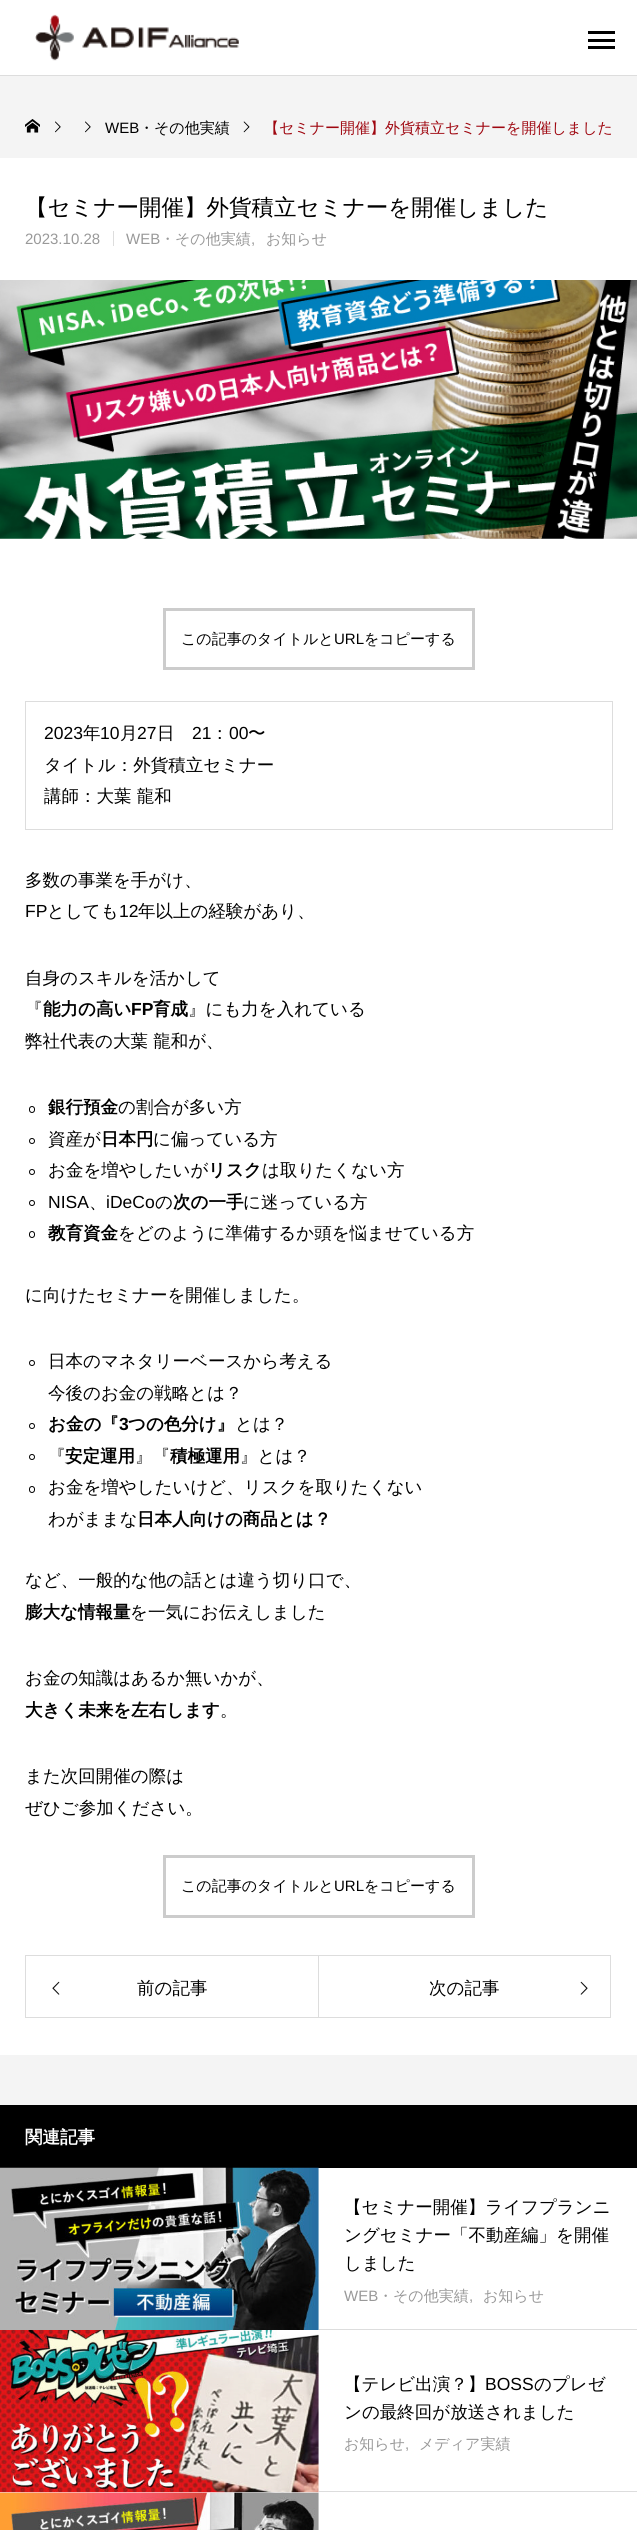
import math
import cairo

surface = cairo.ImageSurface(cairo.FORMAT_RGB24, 637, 2530)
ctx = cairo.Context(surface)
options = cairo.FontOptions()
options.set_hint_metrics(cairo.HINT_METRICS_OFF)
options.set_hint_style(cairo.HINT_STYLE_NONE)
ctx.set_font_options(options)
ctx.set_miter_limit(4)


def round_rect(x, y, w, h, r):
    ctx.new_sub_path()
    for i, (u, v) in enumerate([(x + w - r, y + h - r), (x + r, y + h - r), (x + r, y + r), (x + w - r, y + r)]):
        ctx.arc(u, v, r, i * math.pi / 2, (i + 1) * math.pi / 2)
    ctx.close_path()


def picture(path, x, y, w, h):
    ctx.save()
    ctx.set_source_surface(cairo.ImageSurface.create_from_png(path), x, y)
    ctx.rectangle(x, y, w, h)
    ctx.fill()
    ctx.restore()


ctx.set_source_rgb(1, 1, 1)
ctx.paint()
picture("img1.png", 35, 14, 204, 47)
ctx.set_source_rgb(0, 0, 0)
ctx.rectangle(588, 31, 27, 3)
ctx.fill()
ctx.rectangle(588, 39, 27, 3)
ctx.fill()
ctx.rectangle(588, 46, 27, 3)
ctx.fill()
ctx.set_source_rgb(0.957, 0.957, 0.957)
ctx.rectangle(0, 76, 637, 2029)
ctx.fill()
ctx.set_source_rgb(0.867, 0.867, 0.867)
ctx.rectangle(0, 75, 637, 1)
ctx.fill()
picture("img2.png", 25, 119, 15, 14)
picture("img3.png", 55, 121, 6, 12)
picture("img3.png", 85, 121, 6, 12)
ctx.select_font_face("Liberation Sans")
ctx.set_font_size(15)
ctx.set_source_rgb(0, 0, 0)
ctx.move_to(105, 133)
ctx.show_text("WEB")
ctx.select_font_face("WenQuanYi Zen Hei Medium")
ctx.move_to(139, 133)
ctx.show_text("・その他実績")
picture("img4.png", 243, 121, 7, 12)
ctx.set_source_rgb(0.624, 0.031, 0.063)
ctx.move_to(264, 133)
ctx.show_text("【セミナー開催】外貨積立セミナーを開催しました")
ctx.set_source_rgb(1, 1, 1)
ctx.rectangle(0, 158, 637, 1897)
ctx.fill()
ctx.set_font_size(22.5)
ctx.set_source_rgb(0, 0, 0)
ctx.move_to(25, 215)
ctx.show_text("【セミナー開催】外貨積立セミナーを開催しました")
ctx.set_source_rgb(0.867, 0.867, 0.867)
ctx.rectangle(113, 231, 1, 15)
ctx.fill()
ctx.select_font_face("Liberation Sans")
ctx.set_font_size(15)
ctx.set_source_rgb(0.6, 0.6, 0.6)
ctx.move_to(25, 244)
ctx.show_text("2023.10.28")
ctx.move_to(126, 244)
ctx.show_text("WEB")
ctx.select_font_face("WenQuanYi Zen Hei Medium")
ctx.move_to(160, 244)
ctx.show_text("・その他実績")
ctx.select_font_face("Liberation Sans")
ctx.move_to(251, 244)
ctx.show_text(",")
ctx.select_font_face("WenQuanYi Zen Hei Medium")
ctx.move_to(266, 244)
ctx.show_text("お知らせ")
picture("img5.png", 0, 280, 637, 259)
ctx.rectangle(164.5, 609.5, 309, 59)
ctx.set_source_rgb(0.8, 0.8, 0.8)
ctx.set_line_width(3)
ctx.stroke()
ctx.set_source_rgb(0, 0, 0)
ctx.move_to(181, 644)
ctx.show_text("この記事のタイトルと")
ctx.select_font_face("Liberation Sans")
ctx.move_to(334, 644)
ctx.show_text("URL")
ctx.select_font_face("WenQuanYi Zen Hei Medium")
ctx.move_to(364, 644)
ctx.show_text("をコピーする")
ctx.rectangle(25.5, 701.5, 587, 128)
ctx.set_source_rgb(0.867, 0.867, 0.867)
ctx.set_line_width(1)
ctx.stroke()
ctx.select_font_face("Liberation Sans")
ctx.set_font_size(17.5)
ctx.set_source_rgb(0, 0, 0)
ctx.move_to(44, 739)
ctx.show_text("2023")
ctx.select_font_face("WenQuanYi Zen Hei Medium")
ctx.move_to(83, 739)
ctx.show_text("年")
ctx.select_font_face("Liberation Sans")
ctx.move_to(100, 739)
ctx.show_text("10")
ctx.select_font_face("WenQuanYi Zen Hei Medium")
ctx.move_to(120, 739)
ctx.show_text("月")
ctx.select_font_face("Liberation Sans")
ctx.move_to(137, 739)
ctx.show_text("27")
ctx.select_font_face("WenQuanYi Zen Hei Medium")
ctx.move_to(157, 739)
ctx.show_text("日")
ctx.select_font_face("Liberation Sans")
ctx.move_to(192, 739)
ctx.show_text("21")
ctx.select_font_face("WenQuanYi Zen Hei Medium")
ctx.move_to(211, 739)
ctx.show_text("：")
ctx.select_font_face("Liberation Sans")
ctx.move_to(229, 739)
ctx.show_text("00")
ctx.select_font_face("WenQuanYi Zen Hei Medium")
ctx.move_to(248, 739)
ctx.show_text("〜")
ctx.move_to(44, 771)
ctx.show_text("タイトル：外貨積立セミナー")
ctx.move_to(44, 802)
ctx.show_text("講師：大葉 龍和")
ctx.move_to(25, 886)
ctx.show_text("多数の事業を手がけ、")
ctx.select_font_face("Liberation Sans")
ctx.move_to(25, 917)
ctx.show_text("FP")
ctx.select_font_face("WenQuanYi Zen Hei Medium")
ctx.move_to(47, 917)
ctx.show_text("としても")
ctx.select_font_face("Liberation Sans")
ctx.move_to(119, 917)
ctx.show_text("12")
ctx.select_font_face("WenQuanYi Zen Hei Medium")
ctx.move_to(138, 917)
ctx.show_text("年以上の経験があり、")
ctx.move_to(25, 984)
ctx.show_text("自身のスキルを活かして")
ctx.move_to(25, 1015)
ctx.show_text("『")
ctx.select_font_face("WenQuanYi Zen Hei", cairo.FONT_SLANT_NORMAL, cairo.FONT_WEIGHT_BOLD)
ctx.move_to(43, 1015)
ctx.show_text("能力の高い")
ctx.select_font_face("Liberation Sans", cairo.FONT_SLANT_NORMAL, cairo.FONT_WEIGHT_BOLD)
ctx.move_to(131, 1015)
ctx.show_text("FP")
ctx.select_font_face("WenQuanYi Zen Hei", cairo.FONT_SLANT_NORMAL, cairo.FONT_WEIGHT_BOLD)
ctx.move_to(153, 1015)
ctx.show_text("育成")
ctx.select_font_face("WenQuanYi Zen Hei Medium")
ctx.move_to(188, 1015)
ctx.show_text("』にも力を入れている")
ctx.move_to(25, 1047)
ctx.show_text("弊社代表の大葉 龍和が、")
round_rect(29.5, 1106.5, 5, 6, 2.5)
ctx.stroke()
ctx.select_font_face("WenQuanYi Zen Hei", cairo.FONT_SLANT_NORMAL, cairo.FONT_WEIGHT_BOLD)
ctx.move_to(48, 1113)
ctx.show_text("銀行預金")
ctx.select_font_face("WenQuanYi Zen Hei Medium")
ctx.move_to(118, 1113)
ctx.show_text("の割合が多い方")
ctx.new_path()
ctx.arc(32, 1141, 2.5, 0, 2 * math.pi)
ctx.stroke()
ctx.move_to(48, 1145)
ctx.show_text("資産が")
ctx.select_font_face("WenQuanYi Zen Hei", cairo.FONT_SLANT_NORMAL, cairo.FONT_WEIGHT_BOLD)
ctx.move_to(101, 1145)
ctx.show_text("日本円")
ctx.select_font_face("WenQuanYi Zen Hei Medium")
ctx.move_to(153, 1145)
ctx.show_text("に偏っている方")
ctx.new_path()
ctx.arc(32, 1172, 2.5, 0, 2 * math.pi)
ctx.stroke()
ctx.move_to(48, 1176)
ctx.show_text("お金を増やしたいが")
ctx.select_font_face("WenQuanYi Zen Hei", cairo.FONT_SLANT_NORMAL, cairo.FONT_WEIGHT_BOLD)
ctx.move_to(208, 1176)
ctx.show_text("リスク")
ctx.select_font_face("WenQuanYi Zen Hei Medium")
ctx.move_to(262, 1176)
ctx.show_text("は取りたくない方")
ctx.new_path()
ctx.arc(32, 1203, 2.5, 0, 2 * math.pi)
ctx.stroke()
ctx.select_font_face("Liberation Sans")
ctx.move_to(48, 1208)
ctx.show_text("NISA")
ctx.move_to(106, 1208)
ctx.show_text("iDeCo")
ctx.select_font_face("WenQuanYi Zen Hei Medium")
ctx.move_to(155, 1208)
ctx.show_text("の")
ctx.select_font_face("WenQuanYi Zen Hei", cairo.FONT_SLANT_NORMAL, cairo.FONT_WEIGHT_BOLD)
ctx.move_to(173, 1208)
ctx.show_text("次の一手")
ctx.select_font_face("WenQuanYi Zen Hei Medium")
ctx.move_to(243, 1208)
ctx.show_text("に迷っている方")
ctx.move_to(89, 1208)
ctx.show_text("、")
round_rect(29.5, 1231.5, 5, 6, 2.5)
ctx.stroke()
ctx.select_font_face("WenQuanYi Zen Hei", cairo.FONT_SLANT_NORMAL, cairo.FONT_WEIGHT_BOLD)
ctx.move_to(48, 1239)
ctx.show_text("教育資金")
ctx.select_font_face("WenQuanYi Zen Hei Medium")
ctx.move_to(118, 1239)
ctx.show_text("をどのように準備するか頭を悩ませている方")
ctx.move_to(25, 1301)
ctx.show_text("に向けたセミナーを開催しました。")
ctx.new_path()
ctx.arc(32, 1363, 2.5, 0, 2 * math.pi)
ctx.stroke()
ctx.move_to(48, 1367)
ctx.show_text("日本のマネタリーベースから考える")
ctx.move_to(48, 1399)
ctx.show_text("今後のお金の戦略とは？")
ctx.new_path()
ctx.arc(32, 1426, 2.5, 0, 2 * math.pi)
ctx.stroke()
ctx.select_font_face("WenQuanYi Zen Hei", cairo.FONT_SLANT_NORMAL, cairo.FONT_WEIGHT_BOLD)
ctx.move_to(48, 1430)
ctx.show_text("お金の『")
ctx.select_font_face("Liberation Sans", cairo.FONT_SLANT_NORMAL, cairo.FONT_WEIGHT_BOLD)
ctx.move_to(119, 1430)
ctx.show_text("3")
ctx.select_font_face("WenQuanYi Zen Hei", cairo.FONT_SLANT_NORMAL, cairo.FONT_WEIGHT_BOLD)
ctx.move_to(128, 1430)
ctx.show_text("つの色分け』")
ctx.select_font_face("WenQuanYi Zen Hei Medium")
ctx.move_to(235, 1430)
ctx.show_text("とは？")
ctx.new_path()
ctx.arc(32, 1457, 2.5, 0, 2 * math.pi)
ctx.stroke()
ctx.move_to(48, 1462)
ctx.show_text("『")
ctx.select_font_face("WenQuanYi Zen Hei", cairo.FONT_SLANT_NORMAL, cairo.FONT_WEIGHT_BOLD)
ctx.move_to(65, 1462)
ctx.show_text("安定運用")
ctx.select_font_face("WenQuanYi Zen Hei Medium")
ctx.move_to(135, 1462)
ctx.show_text("』『")
ctx.select_font_face("WenQuanYi Zen Hei", cairo.FONT_SLANT_NORMAL, cairo.FONT_WEIGHT_BOLD)
ctx.move_to(170, 1462)
ctx.show_text("積極運用")
ctx.select_font_face("WenQuanYi Zen Hei Medium")
ctx.move_to(240, 1462)
ctx.show_text("』とは？")
round_rect(29.5, 1486.5, 5, 6, 2.5)
ctx.stroke()
ctx.move_to(48, 1493)
ctx.show_text("お金を増やしたいけど、リスクを取りたくない")
ctx.move_to(48, 1525)
ctx.show_text("わがままな")
ctx.select_font_face("WenQuanYi Zen Hei", cairo.FONT_SLANT_NORMAL, cairo.FONT_WEIGHT_BOLD)
ctx.move_to(137, 1525)
ctx.show_text("日本人向けの商品とは？")
ctx.select_font_face("WenQuanYi Zen Hei Medium")
ctx.move_to(25, 1586)
ctx.show_text("など、一般的な他の話とは違う切り口で、")
ctx.select_font_face("WenQuanYi Zen Hei", cairo.FONT_SLANT_NORMAL, cairo.FONT_WEIGHT_BOLD)
ctx.move_to(25, 1618)
ctx.show_text("膨大な情報量")
ctx.select_font_face("WenQuanYi Zen Hei Medium")
ctx.move_to(130, 1618)
ctx.show_text("を一気にお伝えしました")
ctx.move_to(25, 1684)
ctx.show_text("お金の知識はあるか無いかが、")
ctx.select_font_face("WenQuanYi Zen Hei", cairo.FONT_SLANT_NORMAL, cairo.FONT_WEIGHT_BOLD)
ctx.move_to(25, 1716)
ctx.show_text("大きく未来を左右します")
ctx.select_font_face("WenQuanYi Zen Hei Medium")
ctx.move_to(220, 1716)
ctx.show_text("。")
ctx.move_to(25, 1782)
ctx.show_text("また次回開催の際は")
ctx.move_to(25, 1814)
ctx.show_text("ぜひご参加ください。")
ctx.rectangle(164.5, 1856.5, 309, 60)
ctx.set_source_rgb(0.8, 0.8, 0.8)
ctx.set_line_width(3)
ctx.stroke()
ctx.set_font_size(15)
ctx.set_source_rgb(0, 0, 0)
ctx.move_to(181, 1891)
ctx.show_text("この記事のタイトルと")
ctx.select_font_face("Liberation Sans")
ctx.move_to(334, 1891)
ctx.show_text("URL")
ctx.select_font_face("WenQuanYi Zen Hei Medium")
ctx.move_to(364, 1891)
ctx.show_text("をコピーする")
ctx.rectangle(25.5, 1955.5, 293, 62)
ctx.set_source_rgb(0.867, 0.867, 0.867)
ctx.set_line_width(1)
ctx.stroke()
picture("img6.png", 52, 1981, 8, 14)
ctx.set_font_size(17.5)
ctx.set_source_rgb(0, 0, 0)
ctx.move_to(137, 1994)
ctx.show_text("前の記事")
ctx.rectangle(318.5, 1955.5, 292, 62)
ctx.set_source_rgb(0.867, 0.867, 0.867)
ctx.stroke()
ctx.set_source_rgb(0, 0, 0)
ctx.move_to(429, 1994)
ctx.show_text("次の記事")
picture("img7.png", 580, 1981, 8, 14)
ctx.rectangle(0, 2105, 637, 63)
ctx.fill()
ctx.select_font_face("WenQuanYi Zen Hei", cairo.FONT_SLANT_NORMAL, cairo.FONT_WEIGHT_BOLD)
ctx.set_source_rgb(1, 1, 1)
ctx.move_to(25, 2143)
ctx.show_text("関連記事")
picture("img8.png", 0, 2167, 319, 163)
ctx.set_source_rgb(0.867, 0.867, 0.867)
ctx.rectangle(319, 2329, 318, 1)
ctx.fill()
ctx.select_font_face("WenQuanYi Zen Hei Medium")
ctx.set_source_rgb(0, 0, 0)
ctx.move_to(344, 2213)
ctx.show_text("【セミナー開催】ライフプランニ")
ctx.move_to(344, 2241)
ctx.show_text("ングセミナー「不動産編」を開催")
ctx.move_to(344, 2269)
ctx.show_text("しました")
ctx.select_font_face("Liberation Sans")
ctx.set_font_size(15)
ctx.set_source_rgb(0.6, 0.6, 0.6)
ctx.move_to(344, 2301)
ctx.show_text("WEB")
ctx.select_font_face("WenQuanYi Zen Hei Medium")
ctx.move_to(378, 2301)
ctx.show_text("・その他実績")
ctx.select_font_face("Liberation Sans")
ctx.move_to(469, 2301)
ctx.show_text(",")
ctx.select_font_face("WenQuanYi Zen Hei Medium")
ctx.move_to(483, 2301)
ctx.show_text("お知らせ")
picture("img9.png", 0, 2330, 319, 163)
ctx.set_source_rgb(0.867, 0.867, 0.867)
ctx.rectangle(319, 2491, 318, 1)
ctx.fill()
ctx.set_font_size(17.5)
ctx.set_source_rgb(0, 0, 0)
ctx.move_to(344, 2390)
ctx.show_text("【テレビ出演？】")
ctx.select_font_face("Liberation Sans")
ctx.move_to(485, 2390)
ctx.show_text("BOSS")
ctx.select_font_face("WenQuanYi Zen Hei Medium")
ctx.move_to(534, 2390)
ctx.show_text("のプレゼ")
ctx.move_to(344, 2418)
ctx.show_text("ンの最終回が放送されました")
ctx.save()
ctx.rectangle(344, 2434, 269, 17)
ctx.clip()
ctx.set_font_size(15)
ctx.set_source_rgb(0.6, 0.6, 0.6)
ctx.move_to(344, 2449)
ctx.show_text("お知らせ")
ctx.restore()
ctx.select_font_face("Liberation Sans")
ctx.set_font_size(15)
ctx.set_source_rgb(0.6, 0.6, 0.6)
ctx.move_to(405, 2449)
ctx.show_text(",")
ctx.select_font_face("WenQuanYi Zen Hei Medium")
ctx.move_to(419, 2449)
ctx.show_text("メディア実績")
picture("img10.png", 0, 2492, 319, 38)
surface.write_to_png("page.png")
